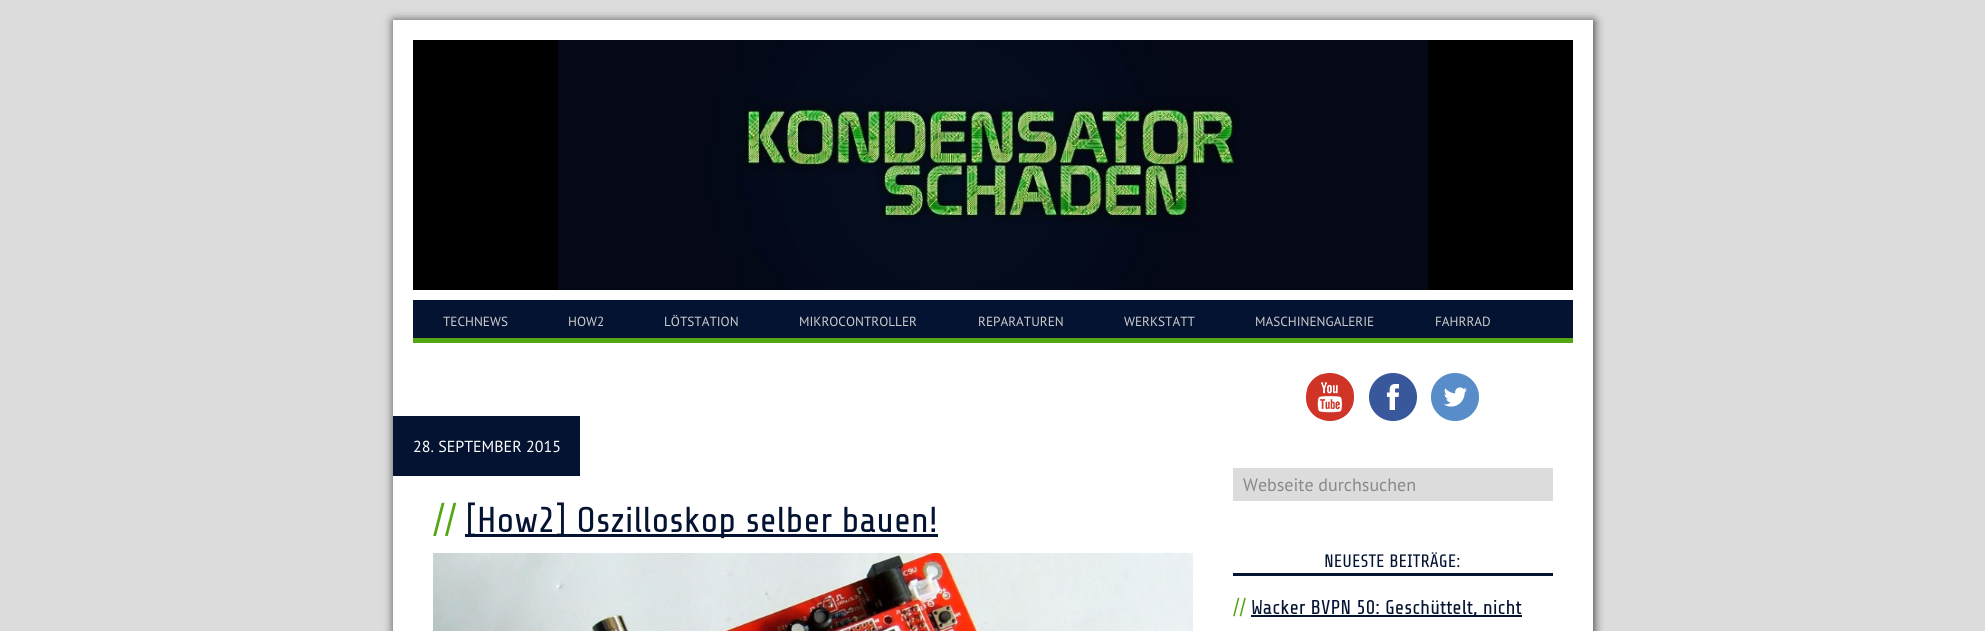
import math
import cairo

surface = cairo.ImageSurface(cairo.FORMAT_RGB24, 1985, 631)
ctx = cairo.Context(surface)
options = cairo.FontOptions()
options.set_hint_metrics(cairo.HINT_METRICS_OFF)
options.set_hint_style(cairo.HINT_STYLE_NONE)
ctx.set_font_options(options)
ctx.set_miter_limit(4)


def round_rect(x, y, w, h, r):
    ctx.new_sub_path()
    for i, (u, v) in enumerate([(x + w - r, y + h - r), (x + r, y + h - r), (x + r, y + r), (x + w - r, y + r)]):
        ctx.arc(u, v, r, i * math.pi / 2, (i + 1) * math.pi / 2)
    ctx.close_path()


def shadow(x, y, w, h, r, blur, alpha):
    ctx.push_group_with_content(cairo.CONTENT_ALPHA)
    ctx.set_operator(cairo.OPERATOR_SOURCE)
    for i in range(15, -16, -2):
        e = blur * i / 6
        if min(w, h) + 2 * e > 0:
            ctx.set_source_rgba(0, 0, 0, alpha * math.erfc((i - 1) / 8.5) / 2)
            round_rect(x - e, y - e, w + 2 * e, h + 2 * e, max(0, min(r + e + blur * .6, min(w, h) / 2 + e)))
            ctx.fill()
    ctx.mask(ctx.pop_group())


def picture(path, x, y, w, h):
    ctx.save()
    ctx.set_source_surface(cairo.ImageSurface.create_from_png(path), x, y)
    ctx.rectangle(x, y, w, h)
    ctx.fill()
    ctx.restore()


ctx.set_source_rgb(0.863, 0.863, 0.863)
ctx.paint()
ctx.set_source_rgb(0.2, 0.2, 0.2)
shadow(394, 21, 1200, 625, 0, 5, 1)
ctx.set_source_rgb(1, 1, 1)
ctx.rectangle(393, 20, 1200, 611)
ctx.fill()
ctx.set_source_rgb(0, 0, 0)
ctx.rectangle(413, 40, 1160, 250)
ctx.fill()
picture("img1.png", 558, 40, 870, 250)
ctx.set_source_rgb(0.016, 0.075, 0.192)
ctx.rectangle(413, 300, 1160, 38)
ctx.fill()
ctx.set_source_rgb(0.329, 0.655, 0.075)
ctx.rectangle(413, 338, 1160, 5)
ctx.fill()
ctx.select_font_face("PT Sans")
ctx.set_font_size(13.25)
ctx.set_source_rgb(0.8, 0.8, 0.8)
ctx.move_to(443, 326)
ctx.show_text("TECHNEWS")
ctx.move_to(568, 326)
ctx.show_text("HOW2")
ctx.move_to(664, 326)
ctx.show_text("LÖTSTATION")
ctx.move_to(799, 326)
ctx.show_text("MIKROCONTROLLER")
ctx.move_to(978, 326)
ctx.show_text("REPARATUREN")
ctx.move_to(1124, 326)
ctx.show_text("WERKSTATT")
ctx.move_to(1255, 326)
ctx.show_text("MASCHINENGALERIE")
ctx.move_to(1435, 326)
ctx.show_text("FAHRRAD")
ctx.set_source_rgb(0.016, 0.075, 0.192)
ctx.rectangle(393, 416, 187, 60)
ctx.fill()
ctx.set_font_size(16)
ctx.set_source_rgb(1, 1, 1)
ctx.move_to(413, 452)
ctx.show_text("28. SEPTEMBER 2015")
ctx.select_font_face("Share Tech")
ctx.set_font_size(36)
ctx.set_source_rgb(0.329, 0.655, 0.075)
ctx.move_to(433, 532)
ctx.show_text("//")
ctx.set_source_rgb(0.016, 0.075, 0.192)
ctx.rectangle(465, 534, 473, 3)
ctx.fill()
ctx.move_to(465, 532)
ctx.show_text("[How2] Oszilloskop selber bauen!")
picture("img2.png", 433, 553, 760, 78)
picture("img3.png", 1306, 373, 48, 48)
picture("img4.png", 1369, 373, 48, 48)
picture("img5.png", 1431, 373, 48, 48)
ctx.set_source_rgb(0.863, 0.863, 0.863)
ctx.rectangle(1233, 468, 320, 33)
ctx.fill()
ctx.select_font_face("PT Sans")
ctx.set_font_size(18)
ctx.set_source_rgb(0.537, 0.537, 0.537)
ctx.move_to(1243, 491)
ctx.show_text("Webseite durchsuchen")
ctx.set_source_rgb(0.016, 0.075, 0.192)
ctx.rectangle(1233, 573, 320, 3)
ctx.fill()
ctx.select_font_face("Share Tech")
ctx.move_to(1324, 567)
ctx.show_text("NEUESTE BEITRÄGE:")
ctx.set_font_size(20)
ctx.set_source_rgb(0.329, 0.655, 0.075)
ctx.move_to(1233, 614)
ctx.show_text("//")
ctx.set_source_rgb(0.016, 0.075, 0.192)
ctx.rectangle(1251, 615, 271, 2)
ctx.fill()
ctx.move_to(1251, 614)
ctx.show_text("Wacker BVPN 50: Geschüttelt, nicht")
surface.write_to_png("page.png")
